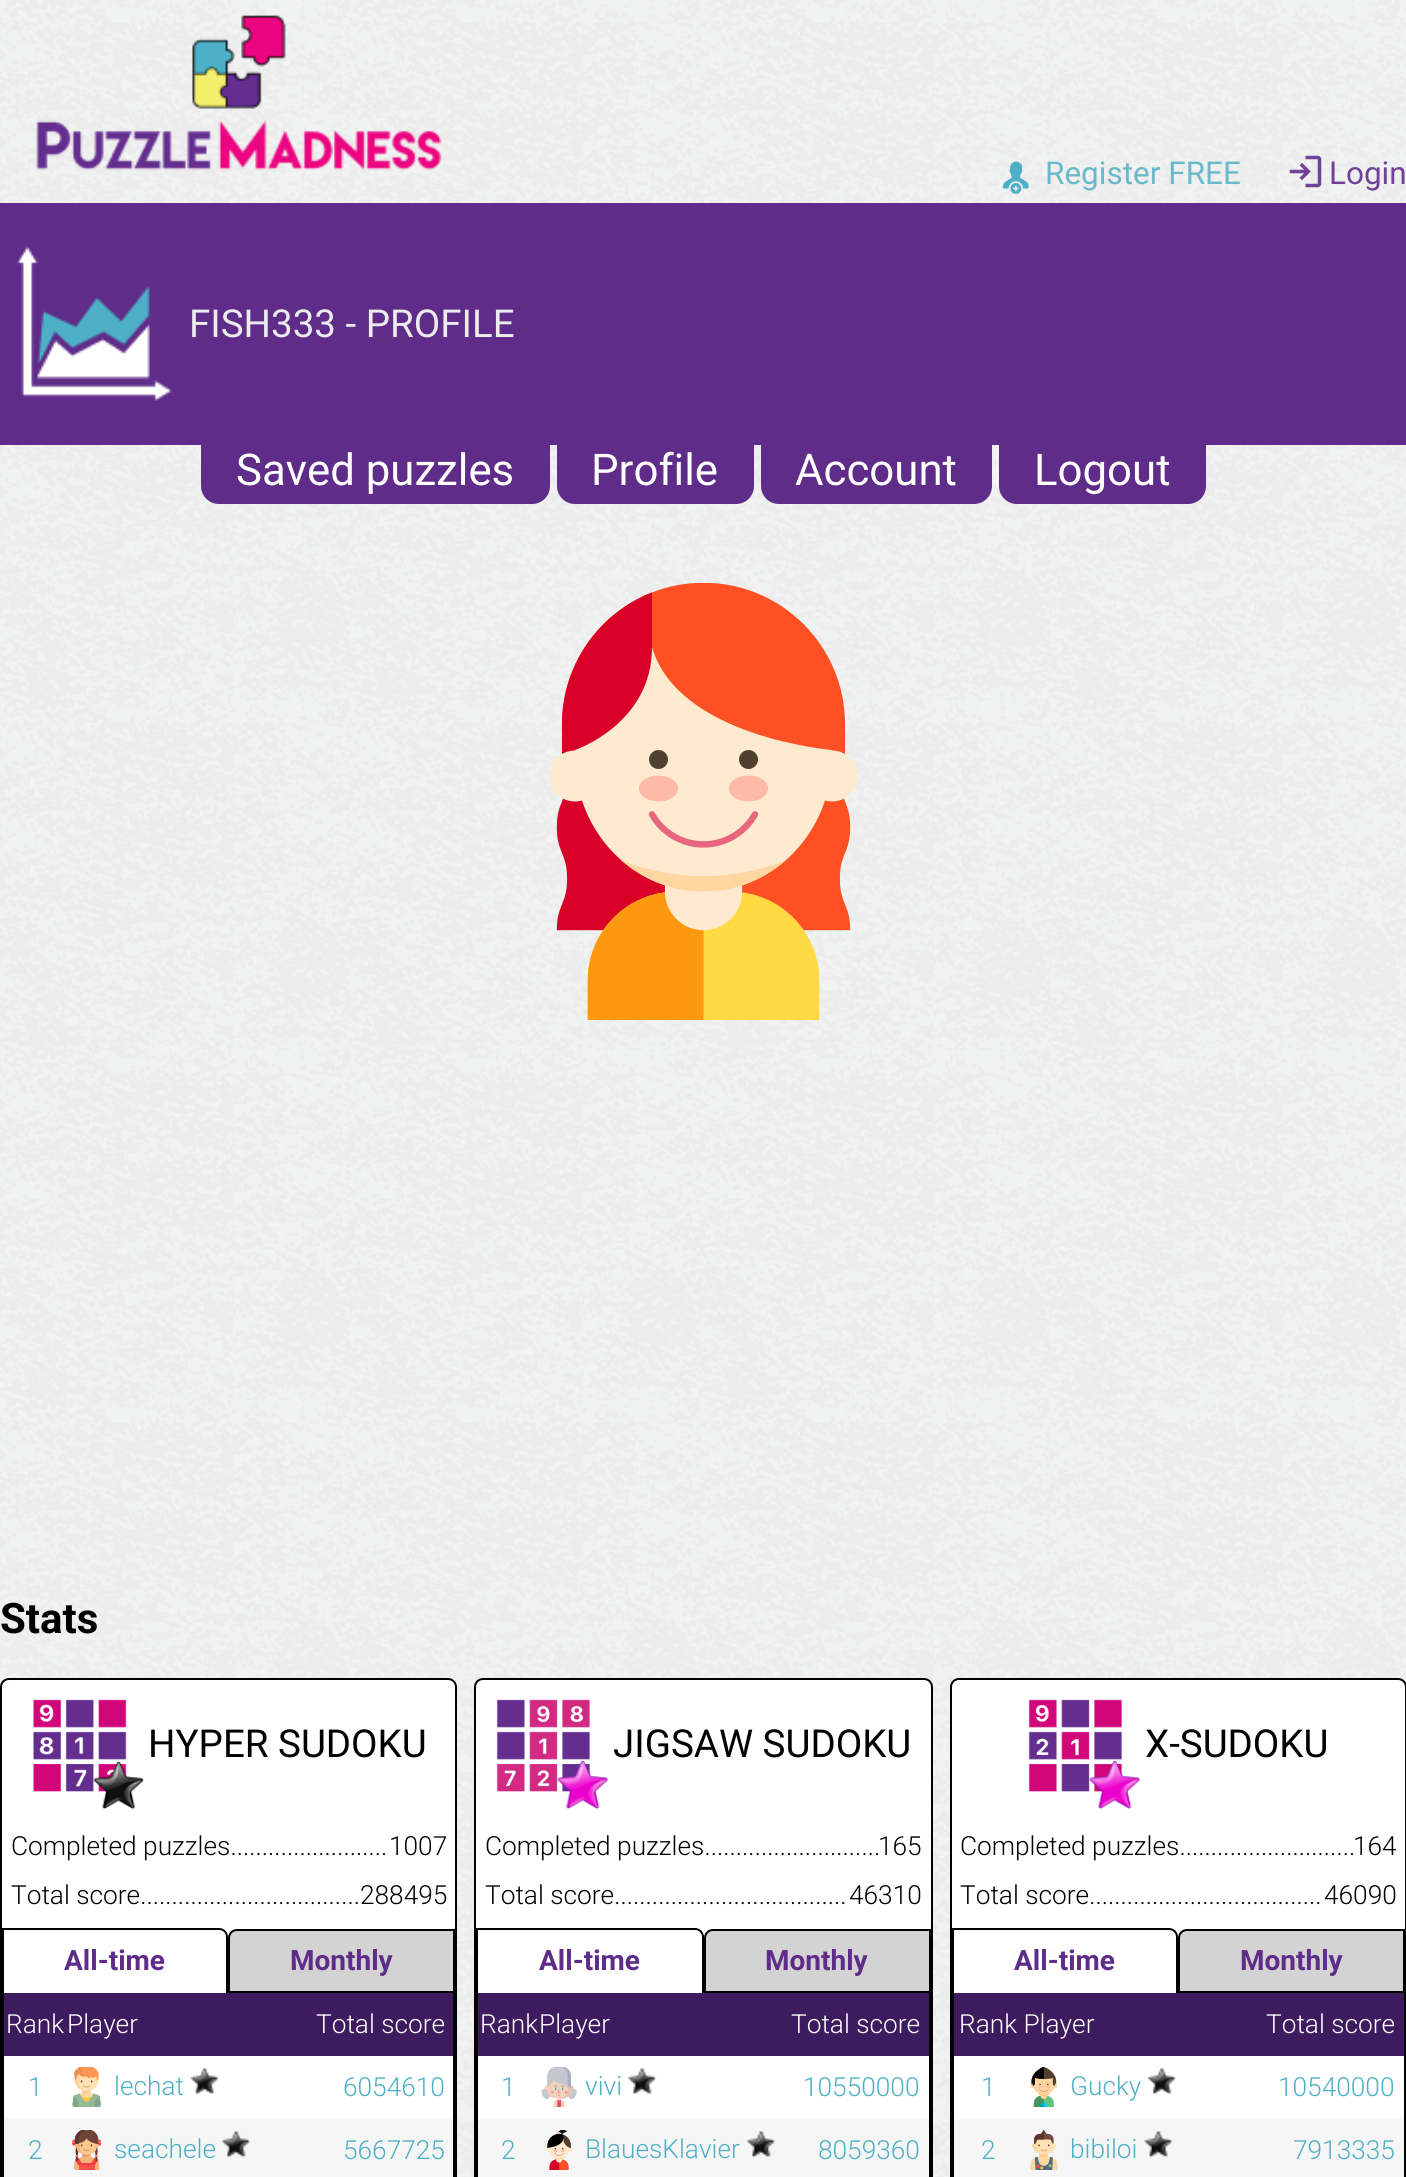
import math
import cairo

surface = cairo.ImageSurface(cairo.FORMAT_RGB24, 1406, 2177)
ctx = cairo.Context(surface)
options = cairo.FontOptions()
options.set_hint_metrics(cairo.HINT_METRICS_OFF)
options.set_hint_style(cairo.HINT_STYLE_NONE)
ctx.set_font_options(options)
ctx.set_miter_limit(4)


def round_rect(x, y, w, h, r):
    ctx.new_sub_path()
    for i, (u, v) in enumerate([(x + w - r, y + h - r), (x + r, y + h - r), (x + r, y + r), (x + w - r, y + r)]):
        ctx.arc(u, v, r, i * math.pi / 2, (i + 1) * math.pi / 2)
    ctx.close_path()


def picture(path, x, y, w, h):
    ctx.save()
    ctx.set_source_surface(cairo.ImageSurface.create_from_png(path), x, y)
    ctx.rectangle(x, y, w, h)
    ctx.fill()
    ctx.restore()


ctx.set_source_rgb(1, 1, 1)
ctx.paint()
picture("img1.png", 0, 0, 1406, 2177)
picture("img2.png", 36, 15, 406, 156)
picture("img3.png", 1003, 161, 26, 33)
ctx.select_font_face("Roboto")
ctx.set_font_size(31.5)
ctx.set_source_rgb(0.416, 0.725, 0.792)
ctx.move_to(1045, 184)
ctx.show_text("Register FREE")
picture("img4.png", 1289, 155, 33, 33)
ctx.set_source_rgb(0.439, 0.263, 0.596)
ctx.move_to(1329, 184)
ctx.show_text("Login")
ctx.set_source_rgb(0.373, 0.173, 0.537)
ctx.rectangle(0, 203, 1406, 242)
ctx.fill()
picture("img5.png", 17, 246, 155, 155)
ctx.set_font_size(38.5)
ctx.set_source_rgb(0.925, 0.925, 0.925)
ctx.move_to(189, 337)
ctx.show_text("FISH333 - PROFILE")
ctx.set_source_rgb(0.373, 0.173, 0.537)
ctx.new_path()
ctx.move_to(201, 436)
ctx.line_to(550, 436)
ctx.line_to(550, 486)
ctx.curve_to(550, 496, 542, 504, 532, 504)
ctx.line_to(219, 504)
ctx.curve_to(209, 504, 201, 496, 201, 486)
ctx.close_path()
ctx.fill()
ctx.set_font_size(43.75)
ctx.set_source_rgb(1, 1, 1)
ctx.move_to(236, 485)
ctx.show_text("Saved puzzles")
ctx.set_source_rgb(0.373, 0.173, 0.537)
ctx.new_path()
ctx.move_to(557, 436)
ctx.line_to(754, 436)
ctx.line_to(754, 486)
ctx.curve_to(754, 496, 746, 504, 736, 504)
ctx.line_to(575, 504)
ctx.curve_to(565, 504, 557, 496, 557, 486)
ctx.close_path()
ctx.fill()
ctx.set_source_rgb(1, 1, 1)
ctx.move_to(591, 485)
ctx.show_text("Profile")
ctx.set_source_rgb(0.373, 0.173, 0.537)
ctx.new_path()
ctx.move_to(761, 436)
ctx.line_to(992, 436)
ctx.line_to(992, 486)
ctx.curve_to(992, 496, 984, 504, 974, 504)
ctx.line_to(779, 504)
ctx.curve_to(769, 504, 761, 496, 761, 486)
ctx.close_path()
ctx.fill()
ctx.set_source_rgb(1, 1, 1)
ctx.move_to(795, 485)
ctx.show_text("Account")
ctx.set_source_rgb(0.373, 0.173, 0.537)
ctx.new_path()
ctx.move_to(999, 436)
ctx.line_to(1206, 436)
ctx.line_to(1206, 486)
ctx.curve_to(1206, 496, 1198, 504, 1188, 504)
ctx.line_to(1017, 504)
ctx.curve_to(1007, 504, 999, 496, 999, 486)
ctx.close_path()
ctx.fill()
ctx.set_source_rgb(1, 1, 1)
ctx.move_to(1034, 485)
ctx.show_text("Logout")
picture("img6.png", 549, 583, 309, 437)
ctx.select_font_face("Roboto", cairo.FONT_SLANT_NORMAL, cairo.FONT_WEIGHT_BOLD)
ctx.set_font_size(42)
ctx.set_source_rgb(0, 0, 0)
ctx.move_to(0, 1633)
ctx.show_text("Stats")
ctx.set_source_rgb(1, 1, 1)
round_rect(1, 1679, 455, 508, 8)
ctx.fill_preserve()
ctx.set_source_rgb(0, 0, 0)
ctx.stroke()
picture("img7.png", 33, 1699, 94, 93)
picture("img8.png", 93, 1761, 51, 49)
ctx.select_font_face("Roboto")
ctx.set_font_size(38.5)
ctx.move_to(148, 1757)
ctx.show_text("HYPER SUDOKU")
ctx.select_font_face("Roboto Light")
ctx.set_font_size(26.25)
ctx.move_to(11, 1855)
ctx.show_text("Completed puzzles.........................")
ctx.move_to(389, 1855)
ctx.show_text("1007")
ctx.move_to(11, 1904)
ctx.show_text("Total score...................................288495")
ctx.set_fill_rule(cairo.FILL_RULE_EVEN_ODD)
ctx.new_path()
ctx.move_to(2, 1928)
ctx.line_to(219, 1928)
ctx.curve_to(224, 1928, 228, 1932, 228, 1937)
ctx.line_to(228, 1993)
ctx.line_to(2, 1993)
ctx.close_path()
ctx.move_to(4, 1930)
ctx.line_to(219, 1930)
ctx.curve_to(223, 1930, 226, 1933, 226, 1937)
ctx.line_to(226, 1993)
ctx.line_to(4, 1993)
ctx.close_path()
ctx.fill()
ctx.select_font_face("Roboto", cairo.FONT_SLANT_NORMAL, cairo.FONT_WEIGHT_BOLD)
ctx.set_font_size(28)
ctx.set_source_rgb(0.373, 0.173, 0.537)
ctx.move_to(64, 1970)
ctx.show_text("All-time")
ctx.set_source_rgb(0.827, 0.827, 0.827)
ctx.new_path()
ctx.move_to(237, 1930)
ctx.line_to(454, 1930)
ctx.line_to(454, 1992)
ctx.line_to(229, 1992)
ctx.line_to(229, 1938)
ctx.curve_to(229, 1933.5, 232.5, 1930, 237, 1930)
ctx.close_path()
ctx.fill_preserve()
ctx.set_source_rgb(0, 0, 0)
ctx.stroke()
ctx.set_source_rgb(0.373, 0.173, 0.537)
ctx.move_to(290, 1970)
ctx.show_text("Monthly")
ctx.set_source_rgb(0, 0, 0)
ctx.rectangle(453, 1993, 2, 184)
ctx.fill()
ctx.rectangle(2, 1993, 2, 184)
ctx.fill()
ctx.set_source_rgb(0.243, 0.106, 0.373)
ctx.rectangle(4, 1993, 449, 63)
ctx.fill()
ctx.select_font_face("Roboto Light")
ctx.set_font_size(26.25)
ctx.set_source_rgb(1, 1, 1)
ctx.move_to(6, 2033)
ctx.show_text("Rank")
ctx.move_to(67, 2033)
ctx.show_text("Player")
ctx.move_to(316, 2033)
ctx.show_text("Total score")
ctx.set_source_rgb(0.302, 0.69, 0.776)
ctx.move_to(28, 2096)
ctx.show_text("1")
picture("img9.png", 72, 2067, 29, 40)
ctx.move_to(114, 2095)
ctx.show_text("lechat")
picture("img10.png", 190, 2068, 29, 27)
ctx.move_to(343, 2096)
ctx.show_text("6054610")
ctx.set_source_rgb(0.961, 0.961, 0.961)
ctx.rectangle(4, 2119, 449, 58)
ctx.fill()
ctx.set_source_rgb(0.302, 0.69, 0.776)
ctx.move_to(28, 2159)
ctx.show_text("2")
picture("img11.png", 72, 2130, 30, 40)
ctx.move_to(114, 2158)
ctx.show_text("seachele")
picture("img12.png", 222, 2131, 29, 27)
ctx.move_to(343, 2159)
ctx.show_text("5667725")
ctx.set_source_rgb(1, 1, 1)
round_rect(475, 1679, 457, 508, 8)
ctx.fill_preserve()
ctx.set_source_rgb(0, 0, 0)
ctx.stroke()
picture("img13.png", 496, 1699, 94, 93)
picture("img14.png", 557, 1760, 51, 50)
ctx.select_font_face("Roboto")
ctx.set_font_size(38.5)
ctx.move_to(613, 1757)
ctx.show_text("JIGSAW SUDOKU")
ctx.select_font_face("Roboto Light")
ctx.set_font_size(26.25)
ctx.move_to(485, 1855)
ctx.show_text("Completed puzzles............................")
ctx.move_to(878, 1855)
ctx.show_text("165")
ctx.move_to(485, 1904)
ctx.show_text("Total score.....................................")
ctx.move_to(849, 1904)
ctx.show_text("46310")
ctx.new_path()
ctx.move_to(476, 1928)
ctx.line_to(695, 1928)
ctx.curve_to(700, 1928, 704, 1932, 704, 1937)
ctx.line_to(704, 1993)
ctx.line_to(476, 1993)
ctx.close_path()
ctx.move_to(478, 1930)
ctx.line_to(695, 1930)
ctx.curve_to(699, 1930, 702, 1933, 702, 1937)
ctx.line_to(702, 1993)
ctx.line_to(478, 1993)
ctx.close_path()
ctx.fill()
ctx.select_font_face("Roboto", cairo.FONT_SLANT_NORMAL, cairo.FONT_WEIGHT_BOLD)
ctx.set_font_size(28)
ctx.set_source_rgb(0.373, 0.173, 0.537)
ctx.move_to(539, 1970)
ctx.show_text("All-time")
ctx.set_source_rgb(0.827, 0.827, 0.827)
ctx.new_path()
ctx.move_to(713, 1930)
ctx.line_to(930, 1930)
ctx.line_to(930, 1992)
ctx.line_to(705, 1992)
ctx.line_to(705, 1938)
ctx.curve_to(705, 1933.5, 708.5, 1930, 713, 1930)
ctx.close_path()
ctx.fill_preserve()
ctx.set_source_rgb(0, 0, 0)
ctx.stroke()
ctx.set_source_rgb(0.373, 0.173, 0.537)
ctx.move_to(765, 1970)
ctx.show_text("Monthly")
ctx.set_source_rgb(0, 0, 0)
ctx.rectangle(929, 1993, 2, 184)
ctx.fill()
ctx.rectangle(476, 1993, 2, 184)
ctx.fill()
ctx.set_source_rgb(0.243, 0.106, 0.373)
ctx.rectangle(478, 1993, 451, 63)
ctx.fill()
ctx.select_font_face("Roboto Light")
ctx.set_font_size(26.25)
ctx.set_source_rgb(1, 1, 1)
ctx.move_to(480, 2033)
ctx.show_text("Rank")
ctx.move_to(539, 2033)
ctx.show_text("Player")
ctx.move_to(791, 2033)
ctx.show_text("Total score")
ctx.set_source_rgb(0.302, 0.69, 0.776)
ctx.move_to(501, 2096)
ctx.show_text("1")
picture("img15.png", 541, 2067, 36, 40)
ctx.move_to(585, 2095)
ctx.show_text("vivi")
picture("img16.png", 628, 2068, 29, 27)
ctx.move_to(803, 2096)
ctx.show_text("10550000")
ctx.set_source_rgb(0.961, 0.961, 0.961)
ctx.rectangle(478, 2119, 451, 58)
ctx.fill()
ctx.set_source_rgb(0.302, 0.69, 0.776)
ctx.move_to(501, 2159)
ctx.show_text("2")
picture("img17.png", 546, 2130, 26, 40)
ctx.move_to(585, 2158)
ctx.show_text("BlauesKlavier")
picture("img18.png", 747, 2131, 29, 27)
ctx.move_to(818, 2159)
ctx.show_text("8059360")
ctx.set_source_rgb(1, 1, 1)
round_rect(951, 1679, 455, 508, 8)
ctx.fill_preserve()
ctx.set_source_rgb(0, 0, 0)
ctx.stroke()
picture("img19.png", 1028, 1699, 94, 93)
picture("img20.png", 1089, 1760, 51, 50)
ctx.select_font_face("Roboto")
ctx.set_font_size(38.5)
ctx.move_to(1145, 1757)
ctx.show_text("X-SUDOKU")
ctx.select_font_face("Roboto Light")
ctx.set_font_size(26.25)
ctx.move_to(960, 1855)
ctx.show_text("Completed puzzles............................")
ctx.set_source_rgb(1, 1, 1)
ctx.rectangle(1353, 1853, 1, 2)
ctx.fill()
ctx.set_source_rgb(0, 0, 0)
ctx.move_to(1353, 1855)
ctx.show_text("164")
ctx.move_to(960, 1904)
ctx.show_text("Total score.....................................")
ctx.move_to(1324, 1904)
ctx.show_text("46090")
ctx.new_path()
ctx.move_to(952, 1928)
ctx.line_to(1169, 1928)
ctx.curve_to(1174, 1928, 1178, 1932, 1178, 1937)
ctx.line_to(1178, 1993)
ctx.line_to(952, 1993)
ctx.close_path()
ctx.move_to(954, 1930)
ctx.line_to(1169, 1930)
ctx.curve_to(1173, 1930, 1176, 1933, 1176, 1937)
ctx.line_to(1176, 1993)
ctx.line_to(954, 1993)
ctx.close_path()
ctx.fill()
ctx.select_font_face("Roboto", cairo.FONT_SLANT_NORMAL, cairo.FONT_WEIGHT_BOLD)
ctx.set_font_size(28)
ctx.set_source_rgb(0.373, 0.173, 0.537)
ctx.move_to(1014, 1970)
ctx.show_text("All-time")
ctx.set_source_rgb(0.827, 0.827, 0.827)
ctx.new_path()
ctx.move_to(1187, 1930)
ctx.line_to(1404, 1930)
ctx.line_to(1404, 1992)
ctx.line_to(1179, 1992)
ctx.line_to(1179, 1938)
ctx.curve_to(1179, 1933.5, 1182.5, 1930, 1187, 1930)
ctx.close_path()
ctx.fill_preserve()
ctx.set_source_rgb(0, 0, 0)
ctx.stroke()
ctx.set_source_rgb(0.373, 0.173, 0.537)
ctx.move_to(1240, 1970)
ctx.show_text("Monthly")
ctx.set_source_rgb(0, 0, 0)
ctx.rectangle(1404, 1993, 1, 184)
ctx.fill()
ctx.rectangle(952, 1993, 2, 184)
ctx.fill()
ctx.set_source_rgb(0.243, 0.106, 0.373)
ctx.rectangle(954, 1993, 450, 63)
ctx.fill()
ctx.select_font_face("Roboto Light")
ctx.set_font_size(26.25)
ctx.set_source_rgb(1, 1, 1)
ctx.move_to(959, 2033)
ctx.show_text("Rank Player")
ctx.move_to(1266, 2033)
ctx.show_text("Total score")
ctx.set_source_rgb(0.302, 0.69, 0.776)
ctx.move_to(981, 2096)
ctx.show_text("1")
picture("img21.png", 1030, 2067, 28, 40)
ctx.move_to(1070, 2095)
ctx.show_text("Gucky")
picture("img22.png", 1148, 2068, 28, 27)
ctx.move_to(1278, 2096)
ctx.show_text("10540000")
ctx.set_source_rgb(0.961, 0.961, 0.961)
ctx.rectangle(954, 2119, 450, 58)
ctx.fill()
ctx.set_source_rgb(0.302, 0.69, 0.776)
ctx.move_to(981, 2159)
ctx.show_text("2")
picture("img23.png", 1030, 2130, 28, 40)
ctx.move_to(1070, 2158)
ctx.show_text("bibiloi")
picture("img24.png", 1144, 2131, 29, 27)
ctx.move_to(1293, 2159)
ctx.show_text("7913335")
surface.write_to_png("page.png")
